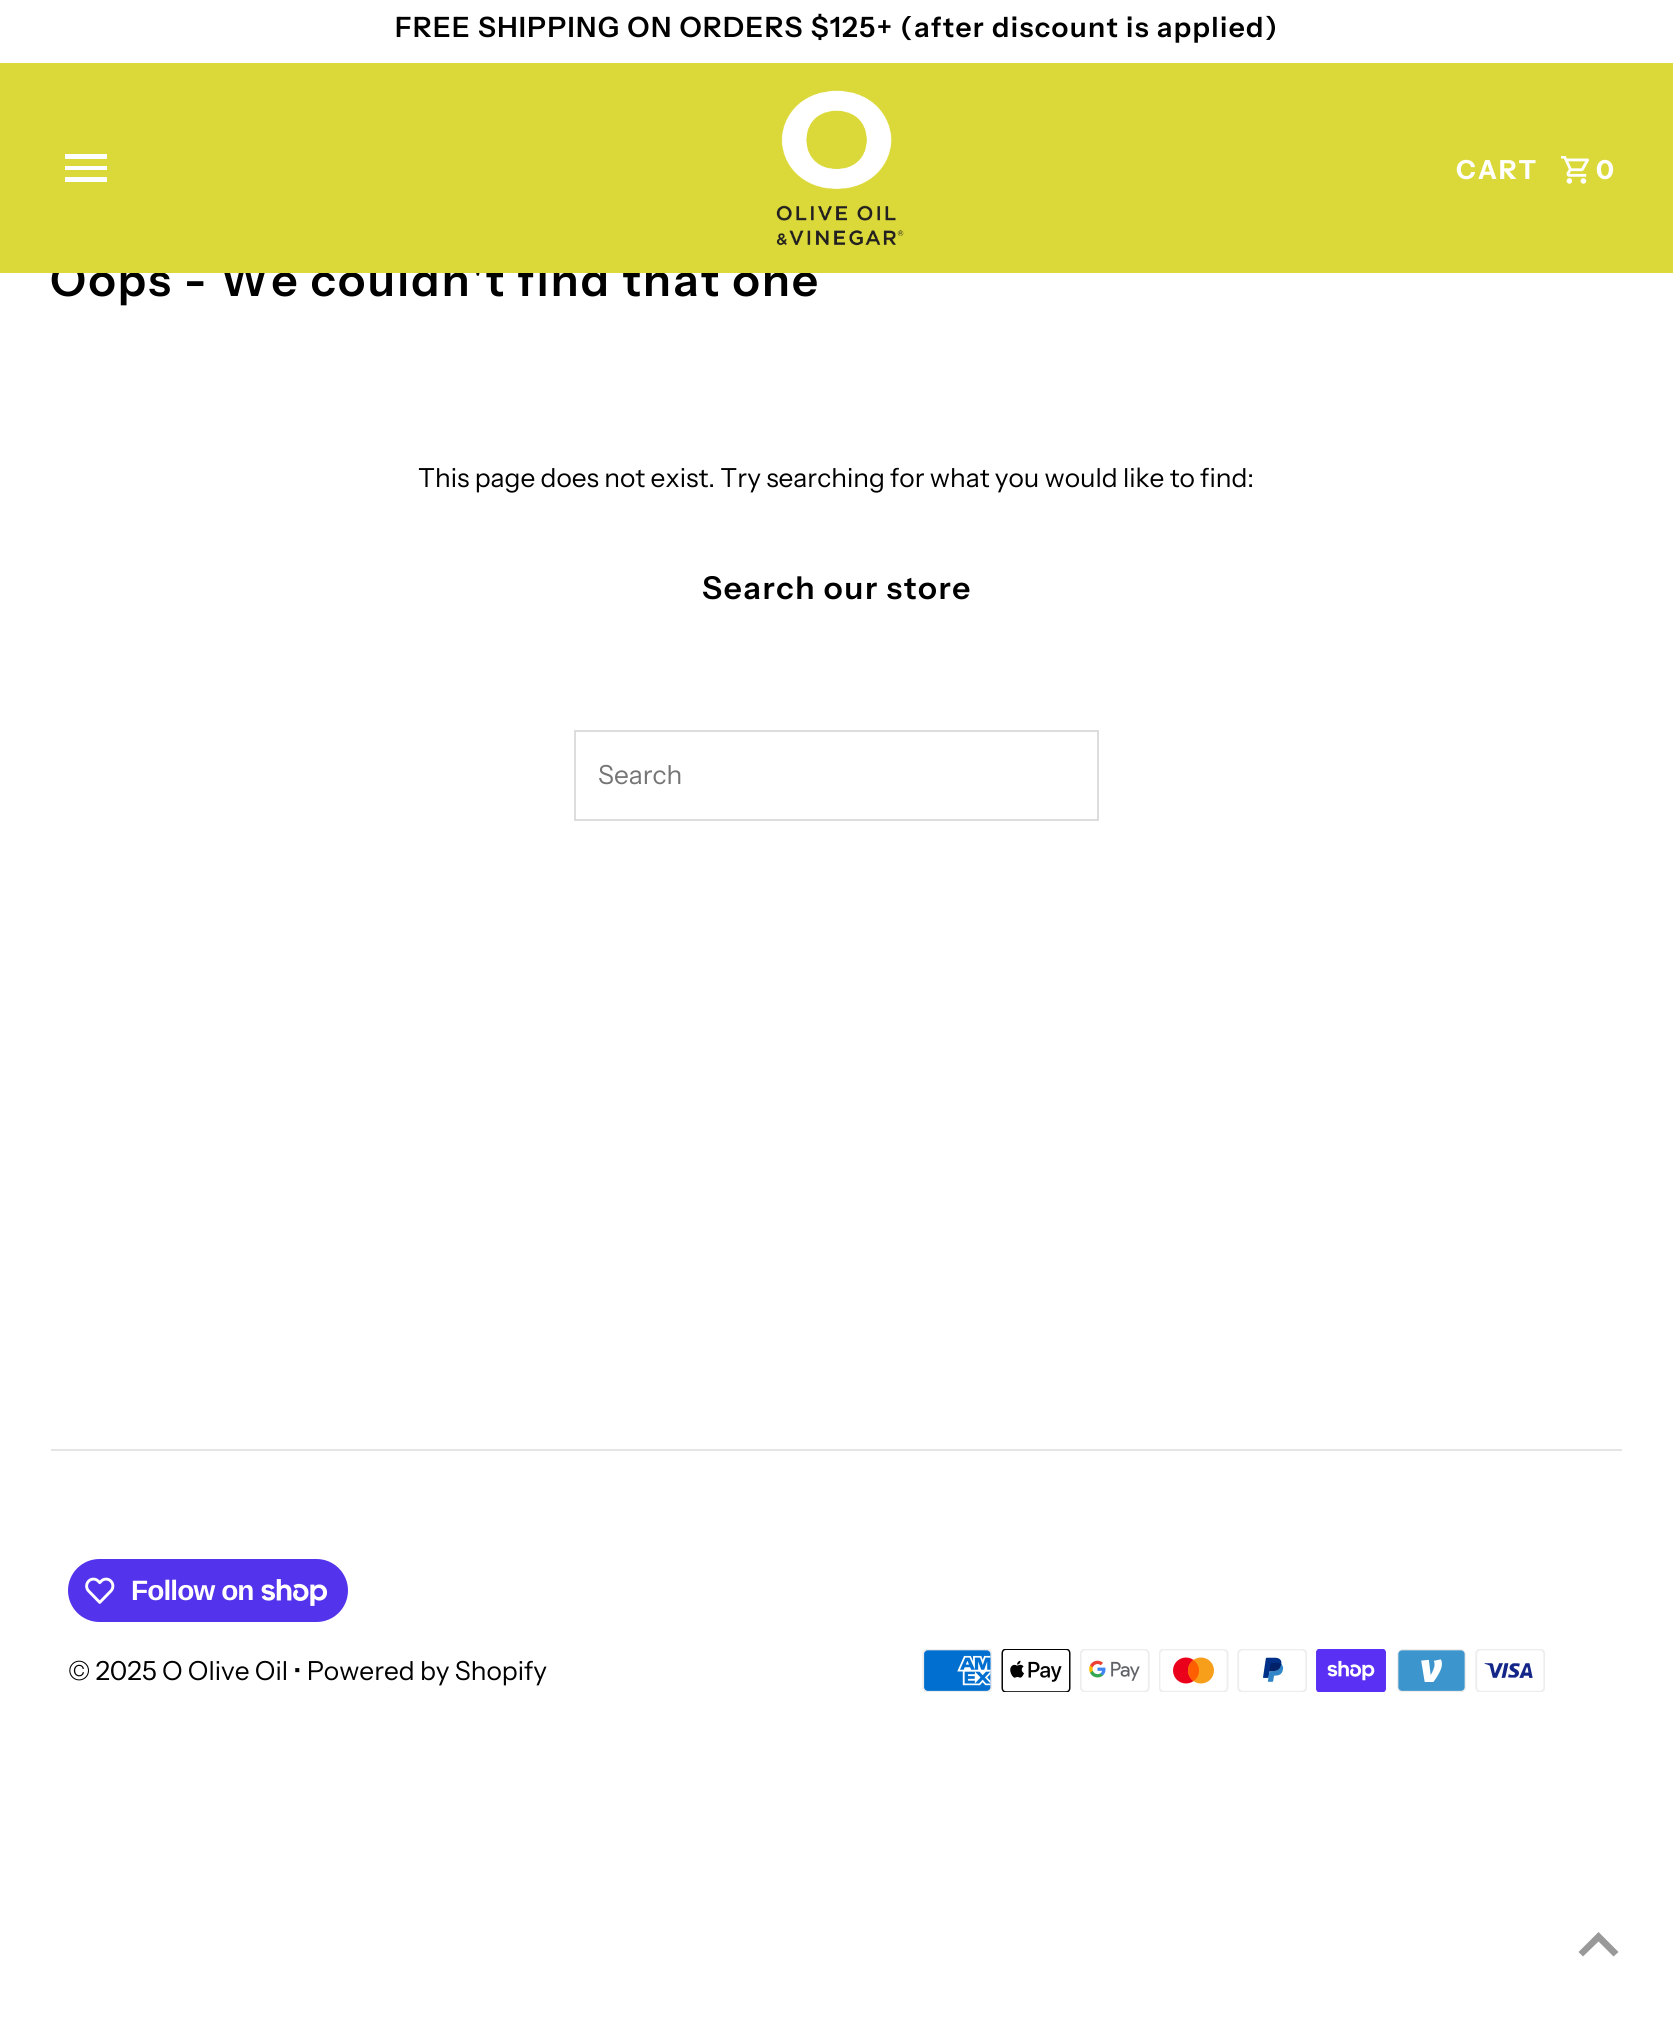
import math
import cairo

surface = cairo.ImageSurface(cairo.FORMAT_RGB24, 1673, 2034)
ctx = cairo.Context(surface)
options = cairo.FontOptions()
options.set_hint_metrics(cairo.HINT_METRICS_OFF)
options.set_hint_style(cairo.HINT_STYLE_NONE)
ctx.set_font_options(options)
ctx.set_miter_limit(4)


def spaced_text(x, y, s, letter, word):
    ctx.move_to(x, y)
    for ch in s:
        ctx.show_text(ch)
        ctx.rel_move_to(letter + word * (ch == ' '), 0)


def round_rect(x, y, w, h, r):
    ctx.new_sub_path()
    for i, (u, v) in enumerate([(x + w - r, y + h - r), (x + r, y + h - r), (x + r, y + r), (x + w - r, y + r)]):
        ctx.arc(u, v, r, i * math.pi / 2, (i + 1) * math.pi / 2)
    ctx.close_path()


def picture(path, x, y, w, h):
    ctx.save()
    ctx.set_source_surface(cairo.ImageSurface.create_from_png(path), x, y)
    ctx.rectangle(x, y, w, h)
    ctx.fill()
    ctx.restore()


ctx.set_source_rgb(1, 1, 1)
ctx.paint()
ctx.select_font_face("Instrument Sans SemiBold")
ctx.set_font_size(28)
ctx.set_source_rgb(0, 0, 0)
spaced_text(395, 37, "FREE SHIPPING ON ORDERS $125+ (after discount is applied)", 1.4, 0)
ctx.set_font_size(45.5)
spaced_text(50, 296, "Oops - We couldn't find that one", 2.25, 0)
ctx.set_source_rgb(0.859, 0.851, 0.224)
ctx.rectangle(0, 63, 1673, 210)
ctx.fill()
ctx.set_source_rgb(1, 1, 1)
ctx.rectangle(65, 177, 42, 5)
ctx.fill()
ctx.rectangle(65, 166, 42, 4)
ctx.fill()
ctx.rectangle(65, 154, 42, 5)
ctx.fill()
picture("img1.png", 776, 90, 128, 156)
ctx.select_font_face("Instrument Sans", cairo.FONT_SLANT_NORMAL, cairo.FONT_WEIGHT_BOLD)
ctx.set_font_size(26.25)
spaced_text(1456, 179, "CART", 2, 0)
picture("img2.png", 1561, 156, 28, 28)
spaced_text(1596, 179, "0", 2, 0)
ctx.select_font_face("Instrument Sans")
ctx.set_source_rgb(0, 0, 0)
ctx.move_to(418, 487)
ctx.show_text("This page does not exist. Try searching for what you would like to find:")
ctx.select_font_face("Instrument Sans SemiBold")
ctx.set_font_size(31.5)
spaced_text(702, 599, "Search our store", 1.6, 0)
ctx.rectangle(575, 731, 523, 89)
ctx.set_source_rgb(0.867, 0.867, 0.867)
ctx.stroke()
ctx.select_font_face("Instrument Sans")
ctx.set_font_size(26.25)
ctx.set_source_rgb(0.459, 0.459, 0.459)
ctx.move_to(598, 784)
ctx.show_text("Search")
ctx.set_source_rgb(0.898, 0.898, 0.898)
ctx.rectangle(51, 1449, 1571, 2)
ctx.fill()
ctx.set_source_rgb(0.329, 0.2, 0.922)
round_rect(68, 1559, 280, 63, 31.5)
ctx.fill()
picture("img3.png", 85, 1577, 30, 27)
ctx.select_font_face("Liberation Sans", cairo.FONT_SLANT_NORMAL, cairo.FONT_WEIGHT_BOLD)
ctx.set_font_size(28)
ctx.set_source_rgb(1, 1, 1)
spaced_text(131, 1600, "Follow on", -0.9, 0)
picture("img4.png", 261, 1579, 66, 27)
ctx.select_font_face("Instrument Sans")
ctx.set_font_size(26.25)
ctx.set_source_rgb(0, 0, 0)
ctx.move_to(68, 1680)
ctx.show_text("© 2025 O Olive Oil • Powered by Shopify")
picture("img5.png", 922, 1649, 70, 43)
picture("img6.png", 1001, 1649, 70, 43)
picture("img7.png", 1080, 1649, 70, 43)
picture("img8.png", 1159, 1649, 70, 43)
picture("img9.png", 1237, 1649, 70, 43)
picture("img10.png", 1316, 1649, 70, 43)
picture("img11.png", 1397, 1649, 69, 43)
picture("img12.png", 1475, 1649, 70, 43)
ctx.set_source_rgb(0.6, 0.6, 0.6)
ctx.new_path()
ctx.move_to(1598.5, 1932)
ctx.line_to(1578.5, 1952)
ctx.line_to(1583, 1956.5)
ctx.line_to(1598.5, 1941.5)
ctx.line_to(1613.5, 1956.5)
ctx.line_to(1618.5, 1952)
ctx.close_path()
ctx.fill()
surface.write_to_png("page.png")
